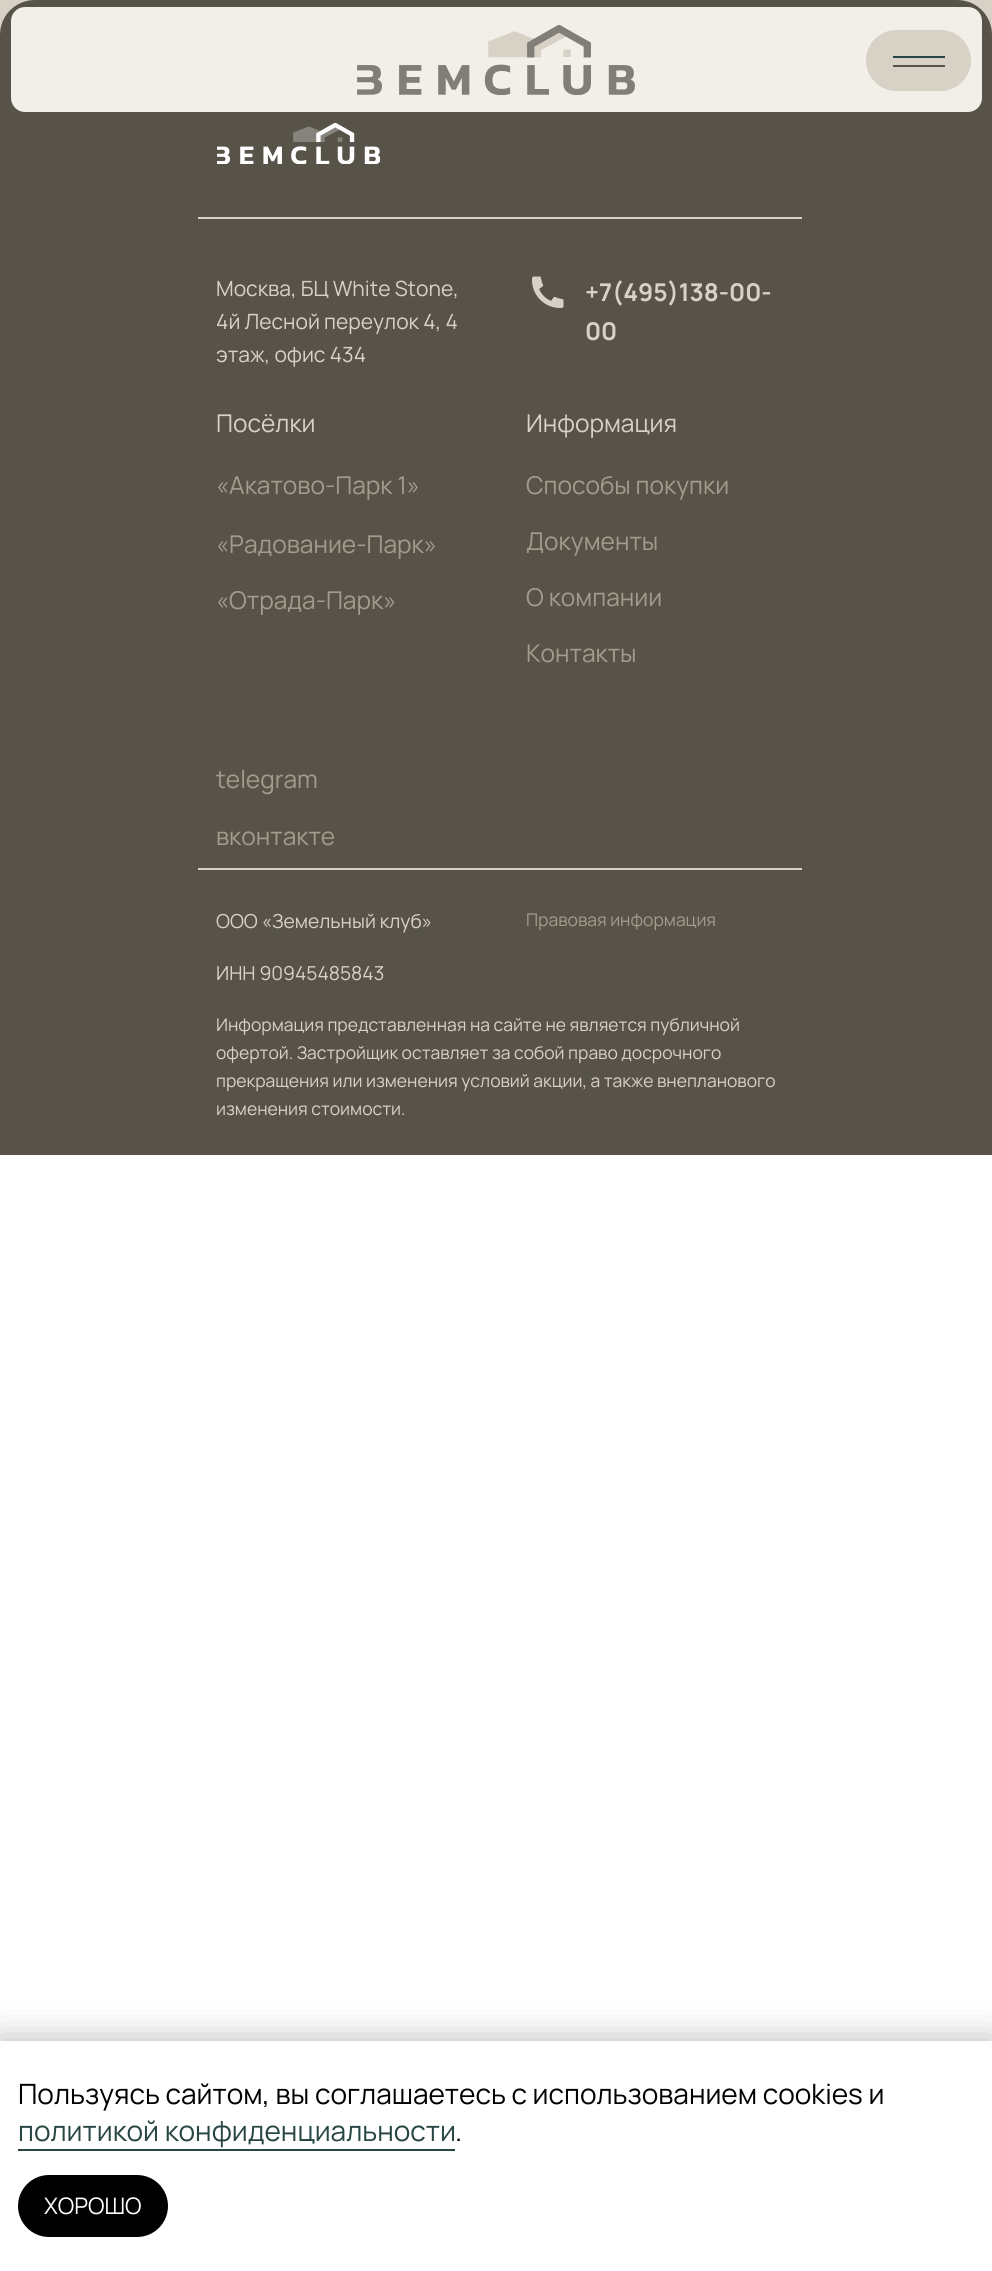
import math
import cairo

surface = cairo.ImageSurface(cairo.FORMAT_RGB24, 992, 2271)
ctx = cairo.Context(surface)
options = cairo.FontOptions()
options.set_hint_metrics(cairo.HINT_METRICS_OFF)
options.set_hint_style(cairo.HINT_STYLE_NONE)
ctx.set_font_options(options)
ctx.set_miter_limit(4)


def round_rect(x, y, w, h, r):
    ctx.new_sub_path()
    for i, (u, v) in enumerate([(x + w - r, y + h - r), (x + r, y + h - r), (x + r, y + r), (x + w - r, y + r)]):
        ctx.arc(u, v, r, i * math.pi / 2, (i + 1) * math.pi / 2)
    ctx.close_path()


def shadow(x, y, w, h, r, blur, alpha):
    ctx.push_group_with_content(cairo.CONTENT_ALPHA)
    ctx.set_operator(cairo.OPERATOR_SOURCE)
    for i in range(15, -16, -2):
        e = blur * i / 6
        if min(w, h) + 2 * e > 0:
            ctx.set_source_rgba(0, 0, 0, alpha * math.erfc((i - 1) / 8.5) / 2)
            round_rect(x - e, y - e, w + 2 * e, h + 2 * e, max(0, min(r + e + blur * .6, min(w, h) / 2 + e)))
            ctx.fill()
    ctx.mask(ctx.pop_group())


def picture(path, x, y, w, h):
    ctx.save()
    ctx.set_source_surface(cairo.ImageSurface.create_from_png(path), x, y)
    ctx.rectangle(x, y, w, h)
    ctx.fill()
    ctx.restore()


ctx.set_source_rgb(1, 1, 1)
ctx.paint()
ctx.set_source_rgb(0.843, 0.82, 0.776)
ctx.rectangle(0, 0, 992, 35)
ctx.fill()
ctx.set_source_rgb(0.341, 0.325, 0.286)
ctx.new_path()
ctx.move_to(35, 0)
ctx.line_to(957, 0)
ctx.curve_to(976.5, 0, 992, 15.5, 992, 35)
ctx.line_to(992, 123)
ctx.line_to(0, 123)
ctx.line_to(0, 35)
ctx.curve_to(0, 15.5, 15.5, 0, 35, 0)
ctx.close_path()
ctx.fill()
ctx.set_source_rgb(0.949, 0.937, 0.914)
round_rect(11, 7, 971, 105, 14)
ctx.fill()
picture("img1.png", 357, 25, 278, 70)
ctx.set_source_rgb(0.843, 0.82, 0.776)
round_rect(866, 30, 105, 61, 30.5)
ctx.fill()
ctx.set_source_rgb(0.157, 0.275, 0.267)
ctx.rectangle(893, 56, 52, 2)
ctx.fill()
ctx.set_source_rgb(0.341, 0.325, 0.286)
ctx.rectangle(893, 65, 52, 2)
ctx.fill()
ctx.rectangle(0, 123, 992, 1032)
ctx.fill()
picture("img2.png", 217, 123, 163, 41)
ctx.set_source_rgb(0.843, 0.82, 0.776)
ctx.rectangle(198, 217, 604, 2)
ctx.fill()
ctx.select_font_face("Manrope")
ctx.set_font_size(21)
ctx.move_to(216, 296)
ctx.show_text("Москва, БЦ White Stone,")
ctx.move_to(216, 329)
ctx.show_text("4й Лесной переулок 4, 4")
ctx.move_to(216, 362)
ctx.show_text("этаж, офис 434")
picture("img3.png", 532, 276, 32, 32)
ctx.select_font_face("Manrope", cairo.FONT_SLANT_NORMAL, cairo.FONT_WEIGHT_BOLD)
ctx.set_font_size(24.5)
ctx.move_to(585, 301)
ctx.show_text("+7(495)138-00-")
ctx.move_to(585, 340)
ctx.show_text("00")
ctx.select_font_face("Manrope")
ctx.move_to(216, 432)
ctx.show_text("Посёлки")
ctx.move_to(526, 432)
ctx.show_text("Информация")
ctx.set_source_rgb(0.639, 0.608, 0.545)
ctx.move_to(216, 494)
ctx.show_text("«Акатово-Парк 1»")
ctx.move_to(526, 494)
ctx.show_text("Способы покупки")
ctx.move_to(216, 553)
ctx.show_text("«Радование-Парк»")
ctx.move_to(526, 550)
ctx.show_text("Документы")
ctx.move_to(216, 609)
ctx.show_text("«Отрада-Парк»")
ctx.move_to(526, 606)
ctx.show_text("О компании")
ctx.move_to(526, 662)
ctx.show_text("Контакты")
ctx.move_to(216, 788)
ctx.show_text("telegram")
ctx.move_to(216, 845)
ctx.show_text("вконтакте")
ctx.set_source_rgb(0.843, 0.82, 0.776)
ctx.rectangle(198, 868, 604, 2)
ctx.fill()
ctx.set_font_size(19.25)
ctx.move_to(216, 928)
ctx.show_text("ООО «Земельный клуб»")
ctx.set_font_size(17.5)
ctx.set_source_rgb(0.639, 0.608, 0.545)
ctx.move_to(526, 926)
ctx.show_text("Правовая информация")
ctx.set_font_size(19.25)
ctx.set_source_rgb(0.843, 0.82, 0.776)
ctx.move_to(216, 980)
ctx.show_text("ИНН 90945485843")
ctx.set_font_size(17.5)
ctx.move_to(216, 1031)
ctx.show_text("Информация представленная на сайте не является публичной")
ctx.move_to(216, 1059)
ctx.show_text("офертой. Застройщик оставляет за собой право досрочного")
ctx.move_to(216, 1087)
ctx.show_text("прекращения или изменения условий акции, а также внепланового")
ctx.move_to(216, 1115)
ctx.show_text("изменения стоимости.")
ctx.set_source_rgb(0, 0, 0)
shadow(0, 2041, 992, 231, 0, 17.5, 0.3)
ctx.set_source_rgb(1, 1, 1)
ctx.rectangle(0, 2041, 992, 230)
ctx.fill()
ctx.set_font_size(28)
ctx.set_source_rgb(0, 0, 0)
ctx.move_to(18, 2104)
ctx.show_text("Пользуясь сайтом, вы соглашаетесь с использованием cookies и")
ctx.set_source_rgb(0.157, 0.275, 0.267)
ctx.move_to(18, 2141)
ctx.show_text("политикой конфиденциальности")
ctx.rectangle(18, 2149, 437, 2)
ctx.fill()
ctx.set_source_rgb(0, 0, 0)
ctx.move_to(455, 2141)
ctx.show_text(".")
round_rect(18, 2175, 150, 62, 31)
ctx.fill()
ctx.set_font_size(22.75)
ctx.set_source_rgb(1, 1, 1)
ctx.move_to(44, 2214)
ctx.show_text("ХОРОШО")
surface.write_to_png("page.png")
